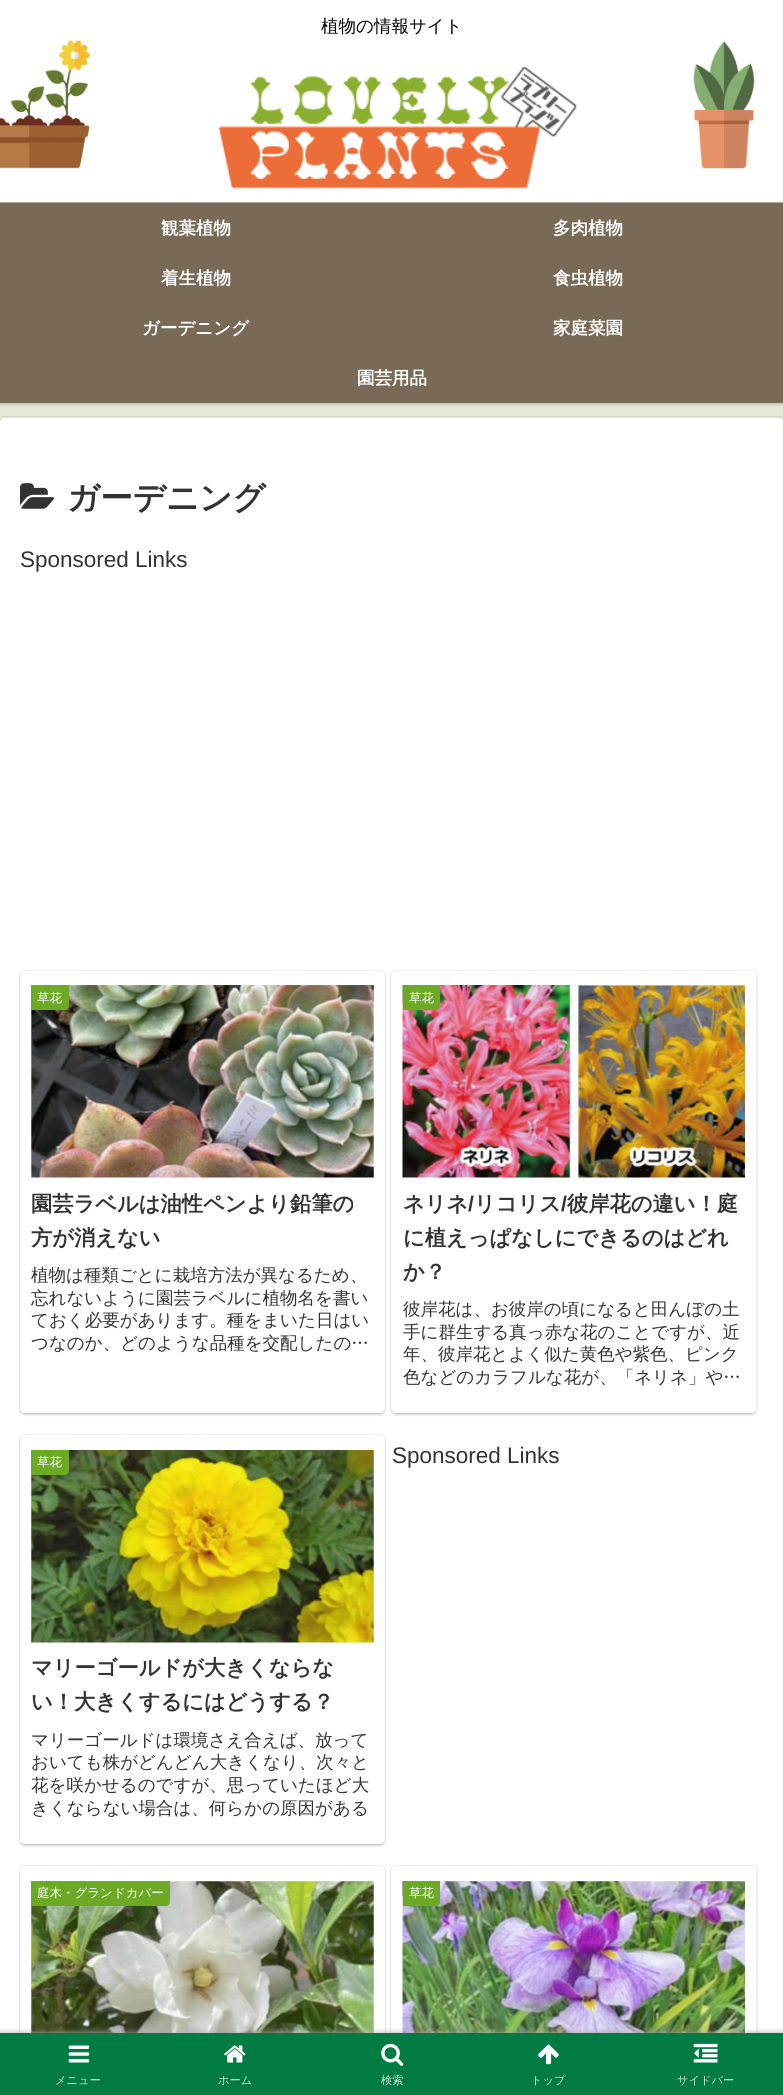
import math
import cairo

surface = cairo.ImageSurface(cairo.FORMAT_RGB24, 783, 2095)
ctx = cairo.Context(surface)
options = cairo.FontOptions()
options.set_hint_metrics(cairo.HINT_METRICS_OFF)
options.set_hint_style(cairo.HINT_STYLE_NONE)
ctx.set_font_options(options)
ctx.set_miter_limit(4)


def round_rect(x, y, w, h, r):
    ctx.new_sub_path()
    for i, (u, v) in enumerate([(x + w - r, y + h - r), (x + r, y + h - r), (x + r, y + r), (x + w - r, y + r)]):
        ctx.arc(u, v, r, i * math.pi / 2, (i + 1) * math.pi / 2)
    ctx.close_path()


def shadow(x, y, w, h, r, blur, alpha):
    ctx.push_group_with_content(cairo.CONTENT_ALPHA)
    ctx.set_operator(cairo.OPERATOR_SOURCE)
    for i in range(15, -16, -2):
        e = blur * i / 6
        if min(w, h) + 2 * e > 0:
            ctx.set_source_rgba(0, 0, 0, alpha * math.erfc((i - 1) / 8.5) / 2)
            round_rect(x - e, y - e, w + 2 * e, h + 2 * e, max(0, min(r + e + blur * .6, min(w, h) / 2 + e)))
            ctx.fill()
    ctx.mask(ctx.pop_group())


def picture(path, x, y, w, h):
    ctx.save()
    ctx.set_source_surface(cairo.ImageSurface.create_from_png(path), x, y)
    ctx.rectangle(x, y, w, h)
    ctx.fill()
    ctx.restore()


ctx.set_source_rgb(0.902, 0.918, 0.843)
ctx.paint()
ctx.set_source_rgb(0.471, 0.416, 0.337)
ctx.rectangle(0, 202, 783, 1)
ctx.fill()
picture("img1.png", 0, 0, 783, 203)
ctx.select_font_face("WenQuanYi Zen Hei Medium")
ctx.set_font_size(17.5)
ctx.set_source_rgb(0, 0, 0)
ctx.move_to(321, 32)
ctx.show_text("植物の情報サイト")
picture("img2.png", 218, 66, 359, 123)
ctx.set_source_rgb(0, 0, 0)
shadow(0, 204, 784, 200, 0, 2, 0.25)
ctx.set_source_rgb(0.471, 0.416, 0.337)
ctx.rectangle(0, 203, 783, 200)
ctx.fill()
ctx.select_font_face("WenQuanYi Zen Hei", cairo.FONT_SLANT_NORMAL, cairo.FONT_WEIGHT_BOLD)
ctx.set_source_rgb(1, 1, 1)
ctx.move_to(161, 234)
ctx.show_text("観葉植物")
ctx.move_to(553, 234)
ctx.show_text("多肉植物")
ctx.move_to(161, 284)
ctx.show_text("着生植物")
ctx.move_to(553, 284)
ctx.show_text("食虫植物")
ctx.move_to(142, 334)
ctx.show_text("ガーデニング")
ctx.move_to(553, 334)
ctx.show_text("家庭菜園")
ctx.move_to(357, 384)
ctx.show_text("園芸用品")
round_rect(-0.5, 416.5, 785, 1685, 5.5)
ctx.set_source_rgb(0.831, 0.843, 0.776)
ctx.set_line_width(1)
ctx.stroke()
ctx.set_source_rgb(1, 1, 1)
round_rect(0, 418, 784, 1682, 5)
ctx.fill()
picture("img3.png", 20, 483, 35, 26)
ctx.set_font_size(32.5)
ctx.set_source_rgb(0.2, 0.2, 0.2)
ctx.move_to(67, 509)
ctx.show_text("ガーデニング")
ctx.select_font_face("Liberation Sans")
ctx.set_font_size(22.5)
ctx.move_to(20, 567)
ctx.show_text("Sponsored Links")
round_rect(19.5, 970.5, 366, 443, 5.5)
ctx.set_source_rgb(0.922, 0.922, 0.922)
ctx.stroke()
ctx.save()
ctx.set_fill_rule(cairo.FILL_RULE_EVEN_ODD)
ctx.new_path()
ctx.move_to(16, 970)
ctx.line_to(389, 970)
ctx.line_to(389, 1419)
ctx.line_to(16, 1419)
ctx.close_path()
ctx.move_to(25, 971)
ctx.line_to(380, 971)
ctx.curve_to(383, 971, 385, 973, 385, 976)
ctx.line_to(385, 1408)
ctx.curve_to(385, 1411, 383, 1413, 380, 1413)
ctx.line_to(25, 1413)
ctx.curve_to(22, 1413, 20, 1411, 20, 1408)
ctx.line_to(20, 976)
ctx.curve_to(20, 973, 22, 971, 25, 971)
ctx.close_path()
ctx.clip()
ctx.set_source_rgb(0, 0, 0)
shadow(20, 974, 365, 441, 5, 1, 0.16)
ctx.restore()
picture("img4.png", 31, 985, 343, 193)
ctx.set_source_rgb(0.424, 0.667, 0.145)
ctx.new_path()
ctx.move_to(31, 985)
ctx.line_to(69, 985)
ctx.line_to(69, 1006)
ctx.curve_to(69, 1008, 67, 1010, 65, 1010)
ctx.line_to(31, 1010)
ctx.close_path()
ctx.fill()
ctx.select_font_face("WenQuanYi Zen Hei Medium")
ctx.set_font_size(12.5)
ctx.set_source_rgb(1, 1, 1)
ctx.move_to(37, 1002)
ctx.show_text("草花")
ctx.select_font_face("WenQuanYi Zen Hei", cairo.FONT_SLANT_NORMAL, cairo.FONT_WEIGHT_BOLD)
ctx.set_font_size(21.25)
ctx.set_source_rgb(0.2, 0.2, 0.2)
ctx.move_to(31, 1211)
ctx.show_text("園芸ラベルは油性ペンより鉛筆の")
ctx.move_to(31, 1245)
ctx.show_text("方が消えない")
ctx.select_font_face("WenQuanYi Zen Hei Medium")
ctx.set_font_size(17.5)
ctx.move_to(31, 1281)
ctx.show_text("植物は種類ごとに栽培方法が異なるため、")
ctx.move_to(31, 1304)
ctx.show_text("忘れないように園芸ラベルに植物名を書い")
ctx.move_to(31, 1326)
ctx.show_text("ておく必要があります。種をまいた日はい")
ctx.move_to(31, 1349)
ctx.show_text("つなのか、どのような品種を交配したの…")
round_rect(390.5, 970.5, 367, 443, 5.5)
ctx.set_source_rgb(0.922, 0.922, 0.922)
ctx.stroke()
ctx.save()
ctx.set_fill_rule(cairo.FILL_RULE_EVEN_ODD)
ctx.new_path()
ctx.move_to(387, 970)
ctx.line_to(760, 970)
ctx.line_to(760, 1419)
ctx.line_to(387, 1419)
ctx.close_path()
ctx.move_to(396, 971)
ctx.line_to(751, 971)
ctx.curve_to(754, 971, 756, 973, 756, 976)
ctx.line_to(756, 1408)
ctx.curve_to(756, 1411, 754, 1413, 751, 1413)
ctx.line_to(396, 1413)
ctx.curve_to(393, 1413, 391, 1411, 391, 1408)
ctx.line_to(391, 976)
ctx.curve_to(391, 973, 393, 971, 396, 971)
ctx.close_path()
ctx.clip()
ctx.set_source_rgb(0, 0, 0)
shadow(391, 974, 365, 441, 5, 1, 0.16)
ctx.restore()
picture("img5.png", 402, 985, 343, 193)
ctx.set_source_rgb(0.424, 0.667, 0.145)
ctx.new_path()
ctx.move_to(403, 985)
ctx.line_to(440, 985)
ctx.line_to(440, 1006)
ctx.curve_to(440, 1008, 438, 1010, 436, 1010)
ctx.line_to(403, 1010)
ctx.close_path()
ctx.fill()
ctx.set_font_size(12.5)
ctx.set_source_rgb(1, 1, 1)
ctx.move_to(409, 1002)
ctx.show_text("草花")
ctx.select_font_face("WenQuanYi Zen Hei", cairo.FONT_SLANT_NORMAL, cairo.FONT_WEIGHT_BOLD)
ctx.set_font_size(21.25)
ctx.set_source_rgb(0.2, 0.2, 0.2)
ctx.move_to(403, 1211)
ctx.show_text("ネリネ")
ctx.select_font_face("Liberation Sans", cairo.FONT_SLANT_NORMAL, cairo.FONT_WEIGHT_BOLD)
ctx.move_to(468, 1211)
ctx.show_text("/")
ctx.select_font_face("WenQuanYi Zen Hei", cairo.FONT_SLANT_NORMAL, cairo.FONT_WEIGHT_BOLD)
ctx.move_to(474, 1211)
ctx.show_text("リコリス")
ctx.select_font_face("Liberation Sans", cairo.FONT_SLANT_NORMAL, cairo.FONT_WEIGHT_BOLD)
ctx.move_to(561, 1211)
ctx.show_text("/")
ctx.select_font_face("WenQuanYi Zen Hei", cairo.FONT_SLANT_NORMAL, cairo.FONT_WEIGHT_BOLD)
ctx.move_to(567, 1211)
ctx.show_text("彼岸花の違い！庭")
ctx.move_to(403, 1245)
ctx.show_text("に植えっぱなしにできるのはどれ")
ctx.move_to(403, 1279)
ctx.show_text("か？")
ctx.select_font_face("WenQuanYi Zen Hei Medium")
ctx.set_font_size(17.5)
ctx.move_to(403, 1315)
ctx.show_text("彼岸花は、お彼岸の頃になると田んぼの土")
ctx.move_to(403, 1338)
ctx.show_text("手に群生する真っ赤な花のことですが、近")
ctx.move_to(403, 1360)
ctx.show_text("年、彼岸花とよく似た黄色や紫色、ピンク")
ctx.move_to(403, 1383)
ctx.show_text("色などのカラフルな花が、「ネリネ」や…")
round_rect(19.5, 1434.5, 366, 410, 5.5)
ctx.set_source_rgb(0.922, 0.922, 0.922)
ctx.stroke()
ctx.save()
ctx.set_fill_rule(cairo.FILL_RULE_EVEN_ODD)
ctx.new_path()
ctx.move_to(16, 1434)
ctx.line_to(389, 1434)
ctx.line_to(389, 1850)
ctx.line_to(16, 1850)
ctx.close_path()
ctx.move_to(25, 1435)
ctx.line_to(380, 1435)
ctx.curve_to(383, 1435, 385, 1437, 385, 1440)
ctx.line_to(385, 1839)
ctx.curve_to(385, 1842, 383, 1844, 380, 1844)
ctx.line_to(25, 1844)
ctx.curve_to(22, 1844, 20, 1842, 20, 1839)
ctx.line_to(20, 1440)
ctx.curve_to(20, 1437, 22, 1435, 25, 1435)
ctx.close_path()
ctx.clip()
ctx.set_source_rgb(0, 0, 0)
shadow(20, 1438, 365, 408, 5, 1, 0.16)
ctx.restore()
picture("img6.png", 31, 1450, 343, 193)
ctx.set_source_rgb(0.424, 0.667, 0.145)
ctx.new_path()
ctx.move_to(31, 1450)
ctx.line_to(69, 1450)
ctx.line_to(69, 1471)
ctx.curve_to(69, 1473, 67, 1475, 65, 1475)
ctx.line_to(31, 1475)
ctx.close_path()
ctx.fill()
ctx.set_font_size(12.5)
ctx.set_source_rgb(1, 1, 1)
ctx.move_to(37, 1466)
ctx.show_text("草花")
ctx.select_font_face("WenQuanYi Zen Hei", cairo.FONT_SLANT_NORMAL, cairo.FONT_WEIGHT_BOLD)
ctx.set_font_size(21.25)
ctx.set_source_rgb(0.2, 0.2, 0.2)
ctx.move_to(31, 1675)
ctx.show_text("マリーゴールドが大きくならな")
ctx.move_to(31, 1709)
ctx.show_text("い！大きくするにはどうする？")
ctx.select_font_face("WenQuanYi Zen Hei Medium")
ctx.set_font_size(17.5)
ctx.move_to(31, 1746)
ctx.show_text("マリーゴールドは環境さえ合えば、放って")
ctx.move_to(31, 1768)
ctx.show_text("おいても株がどんどん大きくなり、次々と")
ctx.move_to(31, 1791)
ctx.show_text("花を咲かせるのですが、思っていたほど大")
ctx.move_to(31, 1814)
ctx.show_text("きくならない場合は、何らかの原因がある")
ctx.select_font_face("Liberation Sans")
ctx.set_font_size(22.5)
ctx.move_to(392, 1463)
ctx.show_text("Sponsored Links")
round_rect(19.5, 1865.5, 366, 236, 5.5)
ctx.set_source_rgb(0.922, 0.922, 0.922)
ctx.stroke()
ctx.save()
ctx.set_fill_rule(cairo.FILL_RULE_EVEN_ODD)
ctx.new_path()
ctx.move_to(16, 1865)
ctx.line_to(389, 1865)
ctx.line_to(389, 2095)
ctx.line_to(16, 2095)
ctx.close_path()
ctx.move_to(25, 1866)
ctx.line_to(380, 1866)
ctx.curve_to(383, 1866, 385, 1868, 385, 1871)
ctx.line_to(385, 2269)
ctx.curve_to(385, 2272, 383, 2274, 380, 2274)
ctx.line_to(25, 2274)
ctx.curve_to(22, 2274, 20, 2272, 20, 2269)
ctx.line_to(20, 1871)
ctx.curve_to(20, 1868, 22, 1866, 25, 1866)
ctx.close_path()
ctx.clip()
ctx.set_source_rgb(0, 0, 0)
shadow(20, 1869, 365, 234, 5, 1, 0.16)
ctx.restore()
picture("img7.png", 31, 1881, 343, 152)
ctx.set_source_rgb(0.424, 0.667, 0.145)
ctx.new_path()
ctx.move_to(31, 1881)
ctx.line_to(170, 1881)
ctx.line_to(170, 1902)
ctx.curve_to(170, 1904, 168, 1906, 166, 1906)
ctx.line_to(31, 1906)
ctx.close_path()
ctx.fill()
ctx.select_font_face("WenQuanYi Zen Hei Medium")
ctx.set_font_size(12.5)
ctx.set_source_rgb(1, 1, 1)
ctx.move_to(37, 1897)
ctx.show_text("庭木・グランドカバー")
round_rect(390.5, 1865.5, 367, 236, 5.5)
ctx.set_source_rgb(0.922, 0.922, 0.922)
ctx.stroke()
ctx.save()
ctx.set_fill_rule(cairo.FILL_RULE_EVEN_ODD)
ctx.new_path()
ctx.move_to(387, 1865)
ctx.line_to(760, 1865)
ctx.line_to(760, 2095)
ctx.line_to(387, 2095)
ctx.close_path()
ctx.move_to(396, 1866)
ctx.line_to(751, 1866)
ctx.curve_to(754, 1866, 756, 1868, 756, 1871)
ctx.line_to(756, 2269)
ctx.curve_to(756, 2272, 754, 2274, 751, 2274)
ctx.line_to(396, 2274)
ctx.curve_to(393, 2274, 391, 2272, 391, 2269)
ctx.line_to(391, 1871)
ctx.curve_to(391, 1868, 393, 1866, 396, 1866)
ctx.close_path()
ctx.clip()
ctx.set_source_rgb(0, 0, 0)
shadow(391, 1869, 365, 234, 5, 1, 0.16)
ctx.restore()
picture("img8.png", 402, 1881, 343, 152)
ctx.set_source_rgb(0.424, 0.667, 0.145)
ctx.new_path()
ctx.move_to(403, 1881)
ctx.line_to(440, 1881)
ctx.line_to(440, 1902)
ctx.curve_to(440, 1904, 438, 1906, 436, 1906)
ctx.line_to(403, 1906)
ctx.close_path()
ctx.fill()
ctx.set_source_rgb(1, 1, 1)
ctx.move_to(409, 1897)
ctx.show_text("草花")
ctx.set_source_rgb(0.663, 0.663, 0.663)
shadow(0, 2033, 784, 62, 0, 3, 1)
ctx.set_source_rgb(0, 0.482, 0.263)
ctx.rectangle(0, 2033, 783, 62)
ctx.fill()
picture("img9.png", 68, 2045, 22, 18)
ctx.set_font_size(11.25)
ctx.set_source_rgb(0.8, 0.898, 0.851)
ctx.move_to(55, 2084)
ctx.show_text("メニュー")
picture("img10.png", 224, 2045, 22, 18)
ctx.move_to(218, 2084)
ctx.show_text("ホーム")
picture("img11.png", 381, 2043, 23, 23)
ctx.move_to(381, 2084)
ctx.show_text("検索")
picture("img12.png", 538, 2044, 21, 21)
ctx.move_to(531, 2084)
ctx.show_text("トップ")
picture("img13.png", 693, 2043, 25, 20)
ctx.move_to(677, 2084)
ctx.show_text("サイドバー")
surface.write_to_png("page.png")
